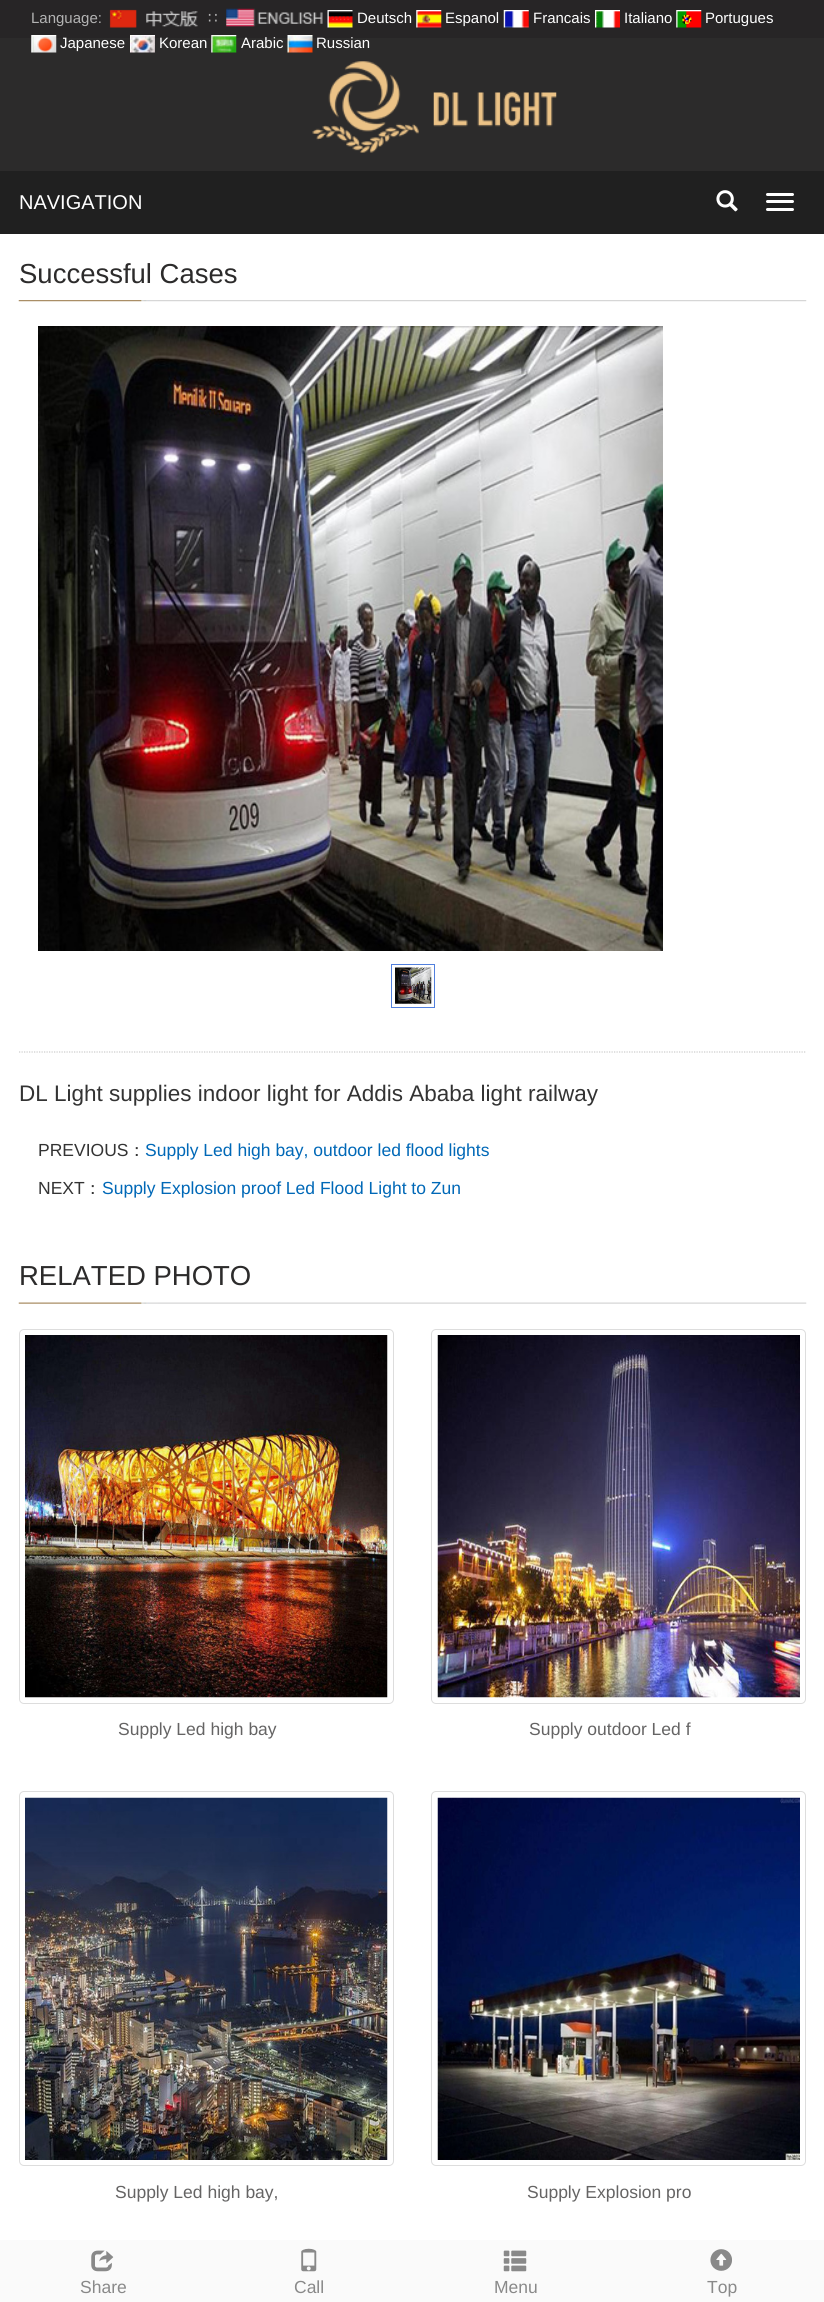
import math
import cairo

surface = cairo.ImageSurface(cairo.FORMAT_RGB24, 824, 2302)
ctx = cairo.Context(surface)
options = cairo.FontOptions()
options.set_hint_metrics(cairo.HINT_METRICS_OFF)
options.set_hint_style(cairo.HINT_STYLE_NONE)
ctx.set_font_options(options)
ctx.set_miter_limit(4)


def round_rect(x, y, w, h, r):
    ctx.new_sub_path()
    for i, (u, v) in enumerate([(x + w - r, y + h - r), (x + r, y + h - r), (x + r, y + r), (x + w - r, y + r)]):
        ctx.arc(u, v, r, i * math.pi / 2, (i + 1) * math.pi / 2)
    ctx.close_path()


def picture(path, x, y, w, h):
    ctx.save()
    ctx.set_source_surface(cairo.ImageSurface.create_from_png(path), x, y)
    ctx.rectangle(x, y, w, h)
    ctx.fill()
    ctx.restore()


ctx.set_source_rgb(1, 1, 1)
ctx.paint()
ctx.set_source_rgb(0.173, 0.169, 0.169)
ctx.rectangle(0, 38, 824, 133)
ctx.fill()
ctx.set_source_rgb(0.153, 0.145, 0.149)
ctx.rectangle(0, 0, 824, 38)
ctx.fill()
ctx.select_font_face("Liberation Sans")
ctx.set_font_size(15)
ctx.set_source_rgb(0.702, 0.702, 0.702)
ctx.move_to(31, 23)
ctx.show_text("Language:")
picture("img1.png", 109, 9, 89, 19)
ctx.select_font_face("DejaVu Sans")
ctx.move_to(208, 23)
ctx.show_text("∷")
picture("img2.png", 226, 8, 97, 19)
picture("img3.png", 327, 10, 26, 18)
ctx.select_font_face("Liberation Sans")
ctx.set_source_rgb(1, 1, 1)
ctx.move_to(357, 23)
ctx.show_text("Deutsch")
picture("img4.png", 416, 10, 26, 18)
ctx.move_to(445, 23)
ctx.show_text("Espanol")
picture("img5.png", 503, 10, 26, 18)
ctx.move_to(533, 23)
ctx.show_text("Francais")
picture("img6.png", 595, 10, 25, 18)
ctx.move_to(624, 23)
ctx.show_text("Italiano")
picture("img7.png", 676, 10, 26, 18)
ctx.move_to(705, 23)
ctx.show_text("Portugues")
picture("img8.png", 31, 35, 26, 18)
ctx.move_to(60, 48)
ctx.show_text("Japanese")
picture("img9.png", 130, 35, 25, 18)
ctx.move_to(159, 48)
ctx.show_text("Korean")
picture("img10.png", 211, 35, 26, 18)
ctx.move_to(241, 48)
ctx.show_text("Arabic")
picture("img11.png", 287, 35, 26, 18)
ctx.move_to(316, 48)
ctx.show_text("Russian")
picture("img12.png", 312, 61, 245, 92)
ctx.set_source_rgb(0.125, 0.125, 0.125)
ctx.rectangle(0, 171, 824, 63)
ctx.fill()
ctx.set_font_size(20)
ctx.set_source_rgb(1, 1, 1)
ctx.move_to(19, 209)
ctx.show_text("NAVIGATION")
picture("img13.png", 716, 190, 22, 22)
round_rect(766, 193, 28, 3, 1.5)
ctx.fill()
round_rect(766, 200, 28, 3, 1.5)
ctx.fill()
round_rect(766, 208, 28, 3, 1.5)
ctx.fill()
picture("img14.png", 18, 300, 789, 2)
ctx.set_font_size(27.5)
ctx.set_source_rgb(0.173, 0.169, 0.169)
ctx.move_to(19, 283)
ctx.show_text("Successful Cases")
picture("img15.png", 38, 326, 625, 625)
ctx.rectangle(391.5, 964.5, 43, 43)
ctx.set_source_rgb(0.322, 0.502, 0.867)
ctx.set_line_width(1)
ctx.stroke()
picture("img16.png", 395, 967, 37, 37)
ctx.new_path()
ctx.move_to(19, 1052)
ctx.line_to(806, 1052)
ctx.set_source_rgb(0.8, 0.8, 0.8)
ctx.set_line_width(1.2)
ctx.set_dash([1.25, 1.25])
ctx.stroke()
ctx.set_font_size(22.5)
ctx.set_source_rgb(0.2, 0.2, 0.2)
ctx.move_to(19, 1101)
ctx.show_text("DL Light supplies indoor light for Addis Ababa light railway")
ctx.set_font_size(17.5)
ctx.move_to(38, 1156)
ctx.show_text("PREVIOUS")
ctx.select_font_face("WenQuanYi Zen Hei Medium")
ctx.move_to(128, 1156)
ctx.show_text("：")
ctx.select_font_face("Liberation Sans")
ctx.set_source_rgb(0, 0.408, 0.718)
ctx.move_to(145, 1156)
ctx.show_text("Supply Led high bay, outdoor led flood lights")
ctx.set_source_rgb(0.2, 0.2, 0.2)
ctx.move_to(38, 1194)
ctx.show_text("NEXT")
ctx.select_font_face("WenQuanYi Zen Hei Medium")
ctx.move_to(84, 1194)
ctx.show_text("：")
ctx.select_font_face("Liberation Sans")
ctx.set_source_rgb(0, 0.408, 0.718)
ctx.move_to(102, 1194)
ctx.show_text("Supply Explosion proof Led Flood Light to Zun")
picture("img17.png", 18, 1302, 789, 2)
ctx.set_font_size(27.5)
ctx.set_source_rgb(0.173, 0.169, 0.169)
ctx.move_to(19, 1285)
ctx.show_text("RELATED PHOTO")
round_rect(19.5, 1329.5, 374, 374, 4.5)
ctx.set_source_rgb(0.867, 0.867, 0.867)
ctx.set_line_width(1)
ctx.set_dash([])
ctx.stroke()
picture("img18.png", 25, 1335, 363, 363)
ctx.set_font_size(17.5)
ctx.set_source_rgb(0.396, 0.392, 0.392)
ctx.move_to(118, 1735)
ctx.show_text("Supply Led high bay")
round_rect(431.5, 1329.5, 374, 374, 4.5)
ctx.set_source_rgb(0.867, 0.867, 0.867)
ctx.stroke()
picture("img19.png", 437, 1335, 363, 363)
ctx.set_source_rgb(0.396, 0.392, 0.392)
ctx.move_to(529, 1735)
ctx.show_text("Supply outdoor Led f")
round_rect(19.5, 1791.5, 374, 374, 4.5)
ctx.set_source_rgb(0.867, 0.867, 0.867)
ctx.stroke()
picture("img20.png", 25, 1797, 363, 363)
ctx.set_source_rgb(0.396, 0.392, 0.392)
ctx.move_to(115, 2198)
ctx.show_text("Supply Led high bay,")
round_rect(431.5, 1791.5, 374, 374, 4.5)
ctx.set_source_rgb(0.867, 0.867, 0.867)
ctx.stroke()
picture("img21.png", 437, 1797, 363, 363)
ctx.set_source_rgb(0.396, 0.392, 0.392)
ctx.move_to(527, 2198)
ctx.show_text("Supply Explosion pro")
ctx.set_source_rgb(0.98, 0.98, 0.98)
ctx.rectangle(0, 2240, 824, 62)
ctx.fill()
picture("img22.png", 91, 2250, 23, 22)
ctx.set_source_rgb(0.537, 0.537, 0.537)
ctx.move_to(80, 2293)
ctx.show_text("Share")
picture("img23.png", 301, 2248, 16, 24)
ctx.move_to(294, 2293)
ctx.show_text("Call")
picture("img24.png", 503, 2250, 24, 22)
ctx.move_to(494, 2293)
ctx.show_text("Menu")
picture("img25.png", 710, 2249, 22, 22)
ctx.move_to(707, 2293)
ctx.show_text("Top")
surface.write_to_png("page.png")
